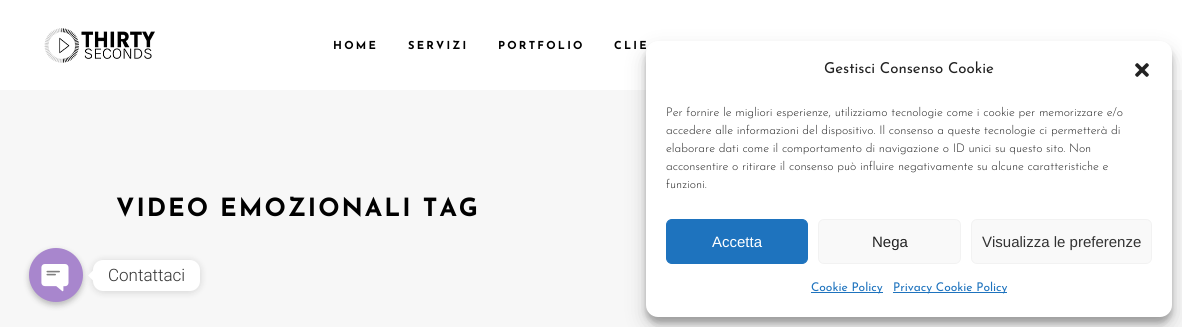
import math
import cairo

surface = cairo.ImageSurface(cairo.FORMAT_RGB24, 1182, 327)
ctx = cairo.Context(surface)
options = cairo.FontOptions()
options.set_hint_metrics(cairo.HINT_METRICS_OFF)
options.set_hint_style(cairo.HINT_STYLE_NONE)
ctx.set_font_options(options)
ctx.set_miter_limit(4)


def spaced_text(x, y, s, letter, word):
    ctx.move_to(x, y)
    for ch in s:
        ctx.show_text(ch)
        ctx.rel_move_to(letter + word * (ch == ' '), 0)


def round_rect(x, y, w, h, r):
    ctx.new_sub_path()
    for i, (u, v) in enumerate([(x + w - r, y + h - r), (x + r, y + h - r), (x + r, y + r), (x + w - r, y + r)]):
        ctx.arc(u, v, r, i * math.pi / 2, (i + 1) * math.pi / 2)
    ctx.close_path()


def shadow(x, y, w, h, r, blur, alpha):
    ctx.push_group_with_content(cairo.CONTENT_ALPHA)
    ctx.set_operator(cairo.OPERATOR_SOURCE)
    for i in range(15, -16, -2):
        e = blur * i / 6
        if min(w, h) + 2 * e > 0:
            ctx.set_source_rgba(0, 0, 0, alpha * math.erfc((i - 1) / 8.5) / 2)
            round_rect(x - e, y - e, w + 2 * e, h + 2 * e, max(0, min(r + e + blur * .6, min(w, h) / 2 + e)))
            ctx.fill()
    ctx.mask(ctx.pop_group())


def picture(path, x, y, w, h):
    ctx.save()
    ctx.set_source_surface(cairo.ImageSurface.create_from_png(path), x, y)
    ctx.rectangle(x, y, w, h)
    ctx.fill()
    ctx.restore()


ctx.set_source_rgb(1, 1, 1)
ctx.paint()
picture("img1.png", 44, 28, 111, 35)
ctx.select_font_face("Josefin Sans", cairo.FONT_SLANT_NORMAL, cairo.FONT_WEIGHT_BOLD)
ctx.set_font_size(11)
ctx.set_source_rgb(0, 0, 0)
spaced_text(333, 49, "HOME", 2.25, 0)
spaced_text(408, 49, "SERVIZI", 2.25, 0)
spaced_text(498, 49, "PORTFOLIO", 2.25, 0)
spaced_text(614, 49, "CLIE", 2.25, 0)
ctx.set_source_rgb(0.965, 0.965, 0.965)
ctx.rectangle(0, 90, 1182, 237)
ctx.fill()
ctx.set_font_size(25)
ctx.set_source_rgb(0, 0, 0)
spaced_text(116, 216, "VIDEO EMOZIONALI TAG", 2, 0)
ctx.set_source_rgb(0, 0, 0)
shadow(646, 47, 526, 276, 12, 3, 0.23)
shadow(646, 51, 526, 276, 12, 10, 0.19)
ctx.set_source_rgb(1, 1, 1)
round_rect(646, 41, 526, 276, 12)
ctx.fill()
ctx.select_font_face("Josefin Sans")
ctx.set_font_size(15)
ctx.set_source_rgb(0.133, 0.133, 0.133)
ctx.move_to(824, 73)
ctx.show_text("Gestisci Consenso Cookie")
picture("img2.png", 1135, 63, 14, 14)
ctx.select_font_face("Josefin Sans Light")
ctx.set_font_size(12)
ctx.move_to(666, 116)
ctx.show_text("Per fornire le migliori esperienze, utilizziamo tecnologie come i cookie per memorizzare e/o")
ctx.move_to(666, 134)
ctx.show_text("accedere alle informazioni del dispositivo. Il consenso a queste tecnologie ci permetterà di")
ctx.move_to(666, 152)
ctx.show_text("elaborare dati come il comportamento di navigazione o ID unici su questo sito. Non")
ctx.move_to(666, 170)
ctx.show_text("acconsentire o ritirare il consenso può influire negativamente su alcune caratteristiche e")
ctx.move_to(666, 188)
ctx.show_text("funzioni.")
ctx.set_source_rgb(0.118, 0.451, 0.745)
round_rect(666.5, 219.5, 141, 44, 5.5)
ctx.fill_preserve()
ctx.set_line_width(1)
ctx.stroke()
ctx.select_font_face("Liberation Sans")
ctx.set_font_size(15)
ctx.set_source_rgb(1, 1, 1)
ctx.move_to(712, 247)
ctx.show_text("Accetta")
ctx.set_source_rgb(0.976, 0.976, 0.976)
round_rect(818.5, 219.5, 142, 44, 5.5)
ctx.fill_preserve()
ctx.set_source_rgb(0.949, 0.949, 0.949)
ctx.stroke()
ctx.set_source_rgb(0.133, 0.133, 0.133)
ctx.move_to(872, 247)
ctx.show_text("Nega")
ctx.set_source_rgb(0.976, 0.976, 0.976)
round_rect(971.5, 219.5, 180, 44, 5.5)
ctx.fill_preserve()
ctx.set_source_rgb(0.949, 0.949, 0.949)
ctx.stroke()
ctx.set_source_rgb(0.2, 0.2, 0.2)
ctx.move_to(982, 247)
ctx.show_text("Visualizza le preferenze")
ctx.set_source_rgb(0.118, 0.451, 0.745)
ctx.rectangle(811, 292, 72, 1)
ctx.fill()
ctx.select_font_face("Josefin Sans")
ctx.set_font_size(12)
ctx.move_to(811, 291)
ctx.show_text("Cookie Policy")
ctx.rectangle(893, 292, 114, 1)
ctx.fill()
ctx.move_to(893, 291)
ctx.show_text("Privacy Cookie Policy")
ctx.set_source_rgb(0, 0, 0)
shadow(93, 261, 107, 31, 10, 4, 0.15)
ctx.set_source_rgb(1, 1, 1)
ctx.new_path()
ctx.move_to(93, 270.5)
ctx.line_to(93, 280.5)
ctx.line_to(88, 275.5)
ctx.close_path()
ctx.fill()
ctx.set_source_rgb(0, 0, 0)
shadow(29, 251, 54, 54, 27, 3, 0.25)
picture("img3.png", 29, 248, 54, 54)
ctx.set_source_rgb(1, 1, 1)
round_rect(93, 260, 107, 31, 10)
ctx.fill()
ctx.select_font_face("Roboto Light")
ctx.set_font_size(17)
ctx.set_source_rgb(0.2, 0.2, 0.2)
ctx.move_to(108, 281)
ctx.show_text("Contattaci")
surface.write_to_png("page.png")
